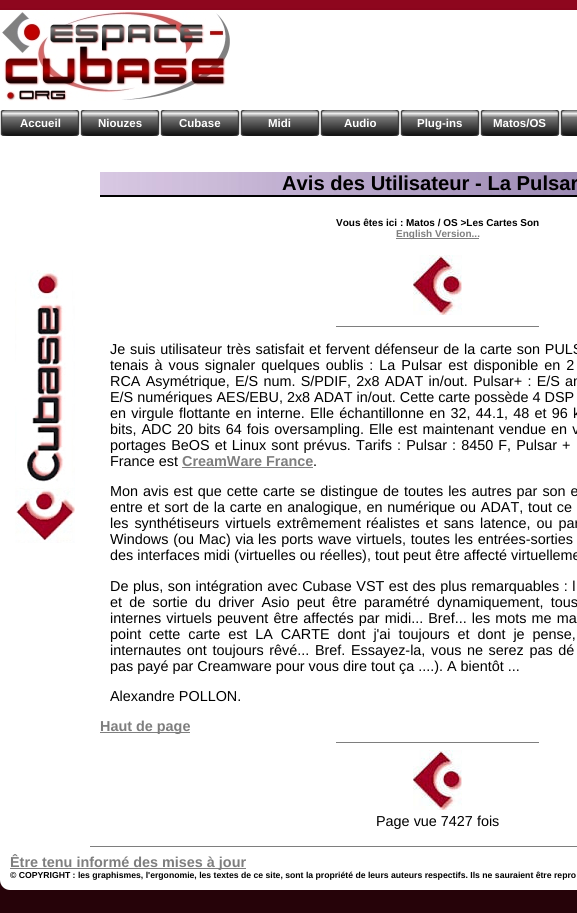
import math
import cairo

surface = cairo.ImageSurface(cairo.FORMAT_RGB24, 577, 913)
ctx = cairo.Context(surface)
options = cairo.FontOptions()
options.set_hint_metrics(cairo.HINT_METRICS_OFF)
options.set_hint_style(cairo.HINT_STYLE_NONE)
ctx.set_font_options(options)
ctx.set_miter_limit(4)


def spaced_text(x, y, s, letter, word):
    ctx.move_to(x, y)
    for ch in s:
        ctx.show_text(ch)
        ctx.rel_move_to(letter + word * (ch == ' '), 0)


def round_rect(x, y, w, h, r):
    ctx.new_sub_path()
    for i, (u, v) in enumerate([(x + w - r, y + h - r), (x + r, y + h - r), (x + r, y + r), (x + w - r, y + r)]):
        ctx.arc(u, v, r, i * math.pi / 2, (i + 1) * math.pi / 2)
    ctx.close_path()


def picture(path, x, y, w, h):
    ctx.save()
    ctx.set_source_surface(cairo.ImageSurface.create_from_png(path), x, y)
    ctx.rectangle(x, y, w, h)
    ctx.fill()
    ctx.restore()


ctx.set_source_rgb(1, 1, 1)
ctx.paint()
picture("img1.png", 0, 0, 577, 913)
ctx.set_source_rgb(1, 1, 1)
round_rect(0, 10, 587, 880, 10)
ctx.fill()
picture("img2.png", 0, 10, 230, 91)
picture("img3.png", 0, 110, 80, 26)
ctx.select_font_face("Liberation Sans", cairo.FONT_SLANT_NORMAL, cairo.FONT_WEIGHT_BOLD)
ctx.set_font_size(11.5)
ctx.move_to(20, 127)
ctx.show_text("Accueil")
picture("img3.png", 80, 110, 80, 26)
ctx.move_to(98, 127)
ctx.show_text("Niouzes")
picture("img3.png", 160, 110, 80, 26)
ctx.move_to(179, 127)
ctx.show_text("Cubase")
picture("img3.png", 240, 110, 80, 26)
ctx.move_to(268, 127)
ctx.show_text("Midi")
picture("img3.png", 320, 110, 80, 26)
ctx.move_to(344, 127)
ctx.show_text("Audio")
picture("img3.png", 400, 110, 80, 26)
ctx.move_to(417, 127)
ctx.show_text("Plug-ins")
picture("img3.png", 480, 110, 80, 26)
ctx.move_to(493, 127)
ctx.show_text("Matos/OS")
picture("img4.png", 560, 110, 17, 26)
picture("img5.png", 15, 270, 60, 273)
picture("img6.png", 100, 172, 477, 23)
ctx.set_source_rgb(0, 0, 0)
ctx.rectangle(100, 195, 477, 2)
ctx.fill()
ctx.set_font_size(20.2)
ctx.move_to(282, 190)
ctx.show_text("Avis des Utilisateur - La Pulsar")
ctx.set_font_size(10)
ctx.move_to(336, 226)
ctx.show_text("Vous êtes ici : Matos / OS >Les Cartes Son")
ctx.set_source_rgb(0.494, 0.494, 0.494)
ctx.rectangle(396, 238, 83, 1)
ctx.fill()
ctx.move_to(396, 237)
ctx.show_text("English Version...")
picture("img7.png", 413, 255, 49, 60)
ctx.rectangle(336, 326, 203, 1)
ctx.fill()
ctx.select_font_face("Liberation Sans")
ctx.set_font_size(14.4)
ctx.set_source_rgb(0, 0, 0)
spaced_text(110, 354, "Je suis utilisateur très satisfait et fervent défenseur de la carte son PULS", 0, 0.75)
spaced_text(110, 370, "tenais à vous signaler quelques oublis : La Pulsar est disponible en 2", 0, 2)
spaced_text(110, 386, "RCA Asymétrique, E/S num. S/PDIF, 2x8 ADAT in/out. Pulsar+ : E/S an", 0, 1.25)
ctx.move_to(110, 402)
ctx.show_text("E/S numériques AES/EBU, 2x8 ADAT in/out. Cette carte possède 4 DSP")
spaced_text(110, 418, "en virgule flottante en interne. Elle échantillonne en 32, 44.1, 48 et 96 k", 0, 1.25)
spaced_text(110, 434, "bits, ADC 20 bits 64 fois oversampling. Elle est maintenant vendue en v", 0, 1.1)
spaced_text(110, 450, "portages BeOS et Linux sont prévus. Tarifs : Pulsar : 8450 F, Pulsar +", 0, 1.1)
ctx.move_to(110, 466)
ctx.show_text("France est")
ctx.select_font_face("Liberation Sans", cairo.FONT_SLANT_NORMAL, cairo.FONT_WEIGHT_BOLD)
ctx.set_source_rgb(0.494, 0.494, 0.494)
ctx.move_to(182, 466)
ctx.show_text("CreamWare France")
ctx.rectangle(182, 467, 131, 1)
ctx.fill()
ctx.select_font_face("Liberation Sans")
ctx.set_source_rgb(0, 0, 0)
ctx.move_to(313, 466)
ctx.show_text(".")
spaced_text(110, 496, "Mon avis est que cette carte se distingue de toutes les autres par son e", 0, 1)
spaced_text(110, 512, "entre et sort de la carte en analogique, en numérique ou ADAT, tout ce", 0, 0.75)
spaced_text(110, 528, "les synthétiseurs virtuels extrêmement", 0, 2)
spaced_text(366, 528, "réalistes et sans latence, ou par", 0, 2)
spaced_text(110, 544, "Windows (ou Mac) via", 0, 0.75)
spaced_text(258, 544, "les ports wave virtuels, toutes les entrées-sorties", 0, 0.75)
ctx.move_to(110, 560)
ctx.show_text("des interfaces midi (virtuelles ou réelles), tout peut être affecté virtuelleme")
spaced_text(110, 591, "De plus, son intégration avec Cubase VST est des plus remarquables : l", 0, 0.5)
spaced_text(110, 607, "et de sortie du driver Asio peut être paramétré dynamiquement, tous", 0, 3.25)
spaced_text(110, 623, "internes virtuels peuvent être affectés par midi... Bref... les mots me ma", 0, 1.1)
spaced_text(110, 639, "point cette carte est LA CARTE dont j'ai toujours et dont je pense,", 0, 3.9)
spaced_text(110, 655, "internautes ont toujours rêvé... Bref. Essayez-la, vous ne serez pas dé", 0, 1.6)
ctx.move_to(110, 671)
ctx.show_text("pas payé par Creamware pour vous dire tout ça ....). A bientôt ...")
ctx.move_to(110, 701)
ctx.show_text("Alexandre POLLON.")
ctx.set_source_rgb(0.494, 0.494, 0.494)
ctx.rectangle(100, 732, 90, 1)
ctx.fill()
ctx.select_font_face("Liberation Sans", cairo.FONT_SLANT_NORMAL, cairo.FONT_WEIGHT_BOLD)
ctx.move_to(100, 731)
ctx.show_text("Haut de page")
ctx.rectangle(336, 742, 203, 1)
ctx.fill()
picture("img7.png", 413, 750, 49, 60)
ctx.select_font_face("Liberation Sans")
ctx.set_source_rgb(0, 0, 0)
ctx.move_to(376, 826)
ctx.show_text("Page vue 7427 fois")
ctx.set_source_rgb(0.494, 0.494, 0.494)
ctx.rectangle(90, 846, 487, 1)
ctx.fill()
ctx.rectangle(10, 868, 236, 1)
ctx.fill()
ctx.select_font_face("Liberation Sans", cairo.FONT_SLANT_NORMAL, cairo.FONT_WEIGHT_BOLD)
ctx.move_to(10, 867)
ctx.show_text("Être tenu informé des mises à jour")
ctx.set_font_size(8.65)
ctx.set_source_rgb(0, 0, 0)
ctx.move_to(10, 878)
ctx.show_text("© COPYRIGHT : les graphismes, l'ergonomie, les textes de ce site, sont la propriété de leurs auteurs respectifs. Ils ne sauraient être repro")
surface.write_to_png("page.png")
